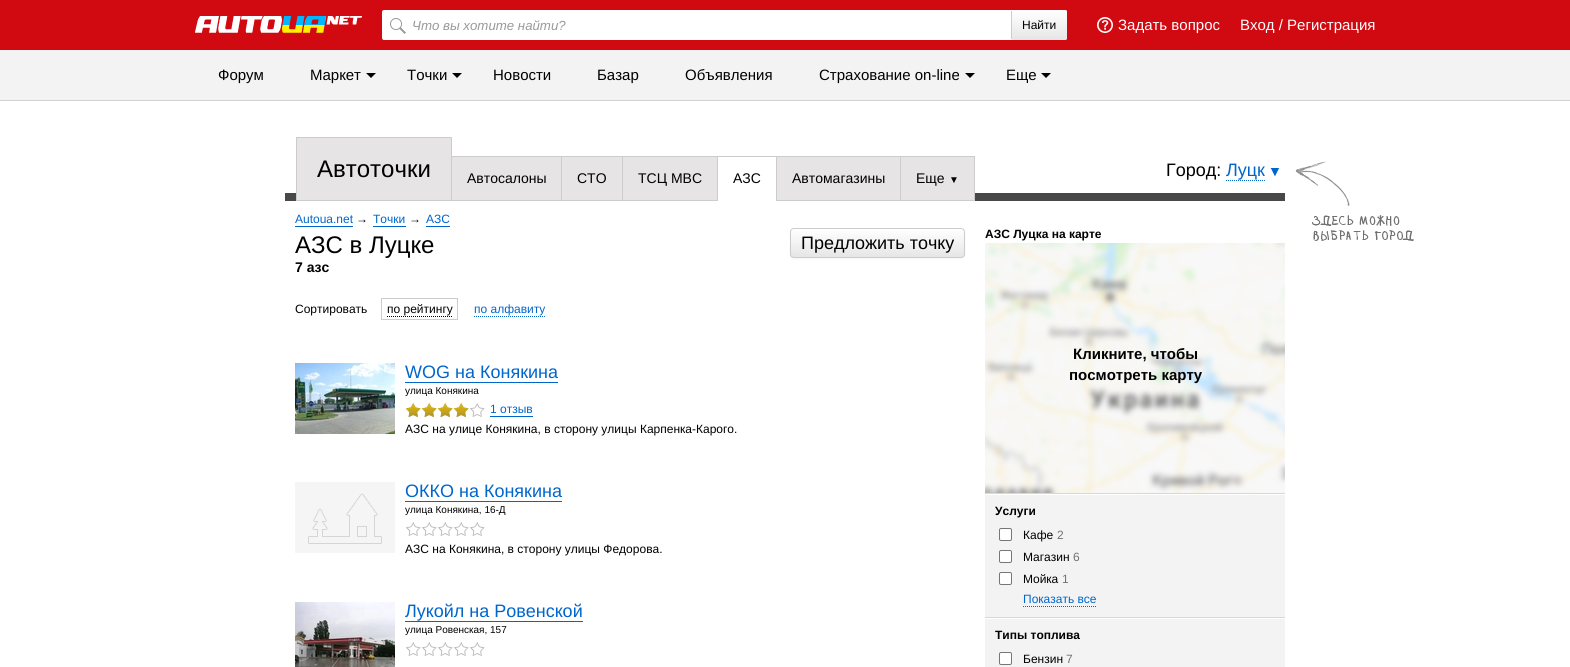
import math
import cairo

surface = cairo.ImageSurface(cairo.FORMAT_RGB24, 1570, 667)
ctx = cairo.Context(surface)
options = cairo.FontOptions()
options.set_hint_metrics(cairo.HINT_METRICS_OFF)
options.set_hint_style(cairo.HINT_STYLE_NONE)
ctx.set_font_options(options)
ctx.set_miter_limit(4)


def round_rect(x, y, w, h, r):
    ctx.new_sub_path()
    for i, (u, v) in enumerate([(x + w - r, y + h - r), (x + r, y + h - r), (x + r, y + r), (x + w - r, y + r)]):
        ctx.arc(u, v, r, i * math.pi / 2, (i + 1) * math.pi / 2)
    ctx.close_path()


def shadow(x, y, w, h, r, blur, alpha):
    ctx.push_group_with_content(cairo.CONTENT_ALPHA)
    ctx.set_operator(cairo.OPERATOR_SOURCE)
    for i in range(15, -16, -2):
        e = blur * i / 6
        if min(w, h) + 2 * e > 0:
            ctx.set_source_rgba(0, 0, 0, alpha * math.erfc((i - 1) / 8.5) / 2)
            round_rect(x - e, y - e, w + 2 * e, h + 2 * e, max(0, min(r + e + blur * .6, min(w, h) / 2 + e)))
            ctx.fill()
    ctx.mask(ctx.pop_group())


def picture(path, x, y, w, h):
    ctx.save()
    ctx.set_source_surface(cairo.ImageSurface.create_from_png(path), x, y)
    ctx.rectangle(x, y, w, h)
    ctx.fill()
    ctx.restore()


ctx.set_source_rgb(1, 1, 1)
ctx.paint()
ctx.set_source_rgb(0.82, 0.039, 0.063)
ctx.rectangle(0, 0, 1570, 50)
ctx.fill()
picture("img1.png", 195, 16, 167, 17)
ctx.set_source_rgb(1, 1, 1)
round_rect(382, 10, 685, 30, 2)
ctx.fill()
picture("img2.png", 390, 18, 16, 16)
ctx.select_font_face("Liberation Sans", cairo.FONT_SLANT_ITALIC)
ctx.set_font_size(13.25)
ctx.set_source_rgb(0.6, 0.6, 0.6)
ctx.move_to(412, 30)
ctx.show_text("Что вы хотите найти?")
gradient = cairo.LinearGradient(1040, 10, 1040, 40)
gradient.add_color_stop_rgba(0, 1, 1, 1, 1)
gradient.add_color_stop_rgba(1, 0.902, 0.902, 0.902, 1)
ctx.set_source(gradient)
round_rect(1011, 10, 56, 30, 2)
ctx.fill()
ctx.save()
ctx.rectangle(372, 10, 705, 30)
ctx.clip()
ctx.set_source_rgb(1, 1, 1)
ctx.new_path()
ctx.move_to(1013, 11)
ctx.line_to(1065, 11)
ctx.curve_to(1066, 11, 1067, 12, 1067, 13)
ctx.curve_to(1067, 8, 1060, 10, 1056, 10)
ctx.line_to(1022, 10)
ctx.curve_to(1015, 10, 1012, 8, 1012, 13)
ctx.curve_to(1012, 12, 1012, 11, 1013, 11)
ctx.close_path()
ctx.fill()
ctx.restore()
ctx.set_source_rgb(0.8, 0.804, 0.804)
ctx.rectangle(1011, 11, 1, 28)
ctx.fill()
ctx.select_font_face("Liberation Sans")
ctx.set_font_size(12)
ctx.set_source_rgb(0, 0, 0)
ctx.move_to(1022, 29)
ctx.show_text("Найти")
picture("img3.png", 1097, 17, 16, 16)
ctx.set_font_size(15)
ctx.set_source_rgb(1, 1, 1)
ctx.move_to(1118, 30)
ctx.show_text("Задать вопрос")
ctx.move_to(1240, 30)
ctx.show_text("Вход / Регистрация")
ctx.set_source_rgb(0.953, 0.953, 0.953)
ctx.rectangle(0, 50, 1570, 50)
ctx.fill()
ctx.set_source_rgb(0.824, 0.824, 0.824)
ctx.rectangle(0, 100, 1570, 1)
ctx.fill()
ctx.set_source_rgb(0, 0, 0)
ctx.move_to(218, 80)
ctx.show_text("Форум")
ctx.move_to(310, 80)
ctx.show_text("Маркет")
ctx.new_path()
ctx.move_to(366, 73)
ctx.line_to(376, 73)
ctx.line_to(371, 78)
ctx.close_path()
ctx.fill()
ctx.move_to(407, 80)
ctx.show_text("Точки")
ctx.new_path()
ctx.move_to(452, 73)
ctx.line_to(462, 73)
ctx.line_to(457, 78)
ctx.close_path()
ctx.fill()
ctx.move_to(493, 80)
ctx.show_text("Новости")
ctx.move_to(597, 80)
ctx.show_text("Базар")
ctx.move_to(685, 80)
ctx.show_text("Объявления")
ctx.move_to(819, 80)
ctx.show_text("Cтрахование on-line")
ctx.new_path()
ctx.move_to(965, 73)
ctx.line_to(975, 73)
ctx.line_to(970, 78)
ctx.close_path()
ctx.fill()
ctx.move_to(1006, 80)
ctx.show_text("Еще")
ctx.new_path()
ctx.move_to(1041, 73)
ctx.line_to(1051, 73)
ctx.line_to(1046, 78)
ctx.close_path()
ctx.fill()
ctx.set_source_rgb(0.282, 0.282, 0.282)
ctx.rectangle(285, 193, 1000, 8)
ctx.fill()
ctx.set_source_rgb(0.902, 0.894, 0.894)
ctx.rectangle(296.5, 137.5, 155, 63)
ctx.fill_preserve()
ctx.set_source_rgb(0.8, 0.8, 0.8)
ctx.set_line_width(1)
ctx.stroke()
ctx.set_font_size(24)
ctx.set_source_rgb(0, 0, 0)
ctx.move_to(317, 177)
ctx.show_text("Автоточки")
ctx.set_source_rgb(0.902, 0.894, 0.894)
ctx.rectangle(451.5, 156.5, 110, 44)
ctx.fill_preserve()
ctx.set_source_rgb(0.8, 0.8, 0.8)
ctx.stroke()
ctx.set_font_size(14)
ctx.set_source_rgb(0, 0, 0)
ctx.move_to(467, 183)
ctx.show_text("Автосалоны")
ctx.set_source_rgb(0.902, 0.894, 0.894)
ctx.rectangle(561.5, 156.5, 61, 44)
ctx.fill_preserve()
ctx.set_source_rgb(0.8, 0.8, 0.8)
ctx.stroke()
ctx.set_source_rgb(0, 0, 0)
ctx.move_to(577, 183)
ctx.show_text("СТО")
ctx.set_source_rgb(0.902, 0.894, 0.894)
ctx.rectangle(622.5, 156.5, 95, 44)
ctx.fill_preserve()
ctx.set_source_rgb(0.8, 0.8, 0.8)
ctx.stroke()
ctx.set_source_rgb(0, 0, 0)
ctx.move_to(638, 183)
ctx.show_text("ТСЦ МВС")
ctx.set_source_rgb(1, 1, 1)
ctx.rectangle(718, 193, 58, 7)
ctx.fill()
ctx.set_source_rgb(0.8, 0.8, 0.8)
ctx.rectangle(717, 156, 60, 1)
ctx.fill()
ctx.set_source_rgb(1, 1, 1)
ctx.rectangle(717, 200, 60, 1)
ctx.fill()
ctx.set_source_rgb(0.8, 0.8, 0.8)
ctx.rectangle(717, 200, 1, 1)
ctx.fill()
ctx.set_source_rgb(0, 0, 0)
ctx.move_to(733, 183)
ctx.show_text("АЗС")
ctx.set_source_rgb(0.902, 0.894, 0.894)
ctx.rectangle(776.5, 156.5, 124, 44)
ctx.fill_preserve()
ctx.set_source_rgb(0.8, 0.8, 0.8)
ctx.stroke()
ctx.set_source_rgb(0, 0, 0)
ctx.move_to(792, 183)
ctx.show_text("Автомагазины")
ctx.set_source_rgb(0.902, 0.894, 0.894)
ctx.rectangle(900.5, 156.5, 74, 44)
ctx.fill_preserve()
ctx.set_source_rgb(0.8, 0.8, 0.8)
ctx.stroke()
ctx.set_source_rgb(0, 0, 0)
ctx.move_to(916, 183)
ctx.show_text("Еще")
ctx.set_font_size(10)
ctx.move_to(949, 183)
ctx.show_text("▼")
ctx.set_font_size(18)
ctx.move_to(1166, 176)
ctx.show_text("Город:")
ctx.set_source_rgb(0, 0.4, 0.8)
ctx.move_to(1226, 176)
ctx.show_text("Луцк")
ctx.new_path()
ctx.move_to(1226, 180.5)
ctx.line_to(1265, 180.5)
ctx.set_dash([1, 1])
ctx.stroke()
picture("img4.png", 1270, 168, 10, 8)
picture("img5.png", 1295, 161, 119, 80)
ctx.set_font_size(12)
ctx.move_to(295, 223)
ctx.show_text("Autoua.net")
ctx.rectangle(295, 226, 58, 1)
ctx.fill()
ctx.set_source_rgb(0, 0, 0)
ctx.move_to(356, 223)
ctx.show_text("→")
ctx.set_source_rgb(0, 0.4, 0.8)
ctx.move_to(373, 223)
ctx.show_text("Точки")
ctx.rectangle(373, 226, 33, 1)
ctx.fill()
ctx.set_source_rgb(0, 0, 0)
ctx.move_to(409, 223)
ctx.show_text("→")
ctx.set_source_rgb(0, 0.4, 0.8)
ctx.move_to(426, 223)
ctx.show_text("АЗС")
ctx.rectangle(426, 226, 24, 1)
ctx.fill()
ctx.set_font_size(24)
ctx.set_source_rgb(0, 0, 0)
ctx.move_to(295, 253)
ctx.show_text("АЗС в Луцке")
ctx.set_source_rgb(0, 0, 0)
shadow(790, 229, 175, 30, 4, 1, 0.05)
ctx.save()
round_rect(790, 228, 175, 30, 4)
ctx.clip()
gradient = cairo.LinearGradient(878, 229, 878, 257)
gradient.add_color_stop_rgba(0, 1, 1, 1, 1)
gradient.add_color_stop_rgba(1, 0.902, 0.902, 0.902, 1)
ctx.set_source(gradient)
ctx.rectangle(790, 229, 175, 28)
ctx.fill()
ctx.restore()
round_rect(790.5, 228.5, 174, 29, 3.5)
ctx.set_source_rgb(0.8, 0.8, 0.8)
ctx.set_dash([])
ctx.stroke()
ctx.set_font_size(18)
ctx.set_source_rgb(0, 0, 0)
ctx.move_to(801, 249)
ctx.show_text("Предложить точку")
ctx.select_font_face("Liberation Sans", cairo.FONT_SLANT_NORMAL, cairo.FONT_WEIGHT_BOLD)
ctx.set_font_size(14)
ctx.move_to(295, 272)
ctx.show_text("7 азс")
ctx.select_font_face("Liberation Sans")
ctx.set_font_size(12)
ctx.move_to(295, 313)
ctx.show_text("Сортировать")
ctx.rectangle(381.5, 298.5, 76, 21)
ctx.set_source_rgb(0.8, 0.8, 0.8)
ctx.stroke()
ctx.set_source_rgb(0, 0, 0)
ctx.move_to(387, 313)
ctx.show_text("по рейтингу")
ctx.new_path()
ctx.move_to(387, 316.5)
ctx.line_to(452, 316.5)
ctx.set_dash([1, 1])
ctx.stroke()
ctx.set_source_rgb(0, 0.4, 0.8)
ctx.move_to(474, 313)
ctx.show_text("по алфавиту")
ctx.new_path()
ctx.move_to(474, 316.5)
ctx.line_to(545, 316.5)
ctx.stroke()
picture("img6.png", 295, 363, 100, 71)
ctx.set_font_size(18)
ctx.move_to(405, 378)
ctx.show_text("WOG на Конякина")
ctx.rectangle(405, 382, 153, 1)
ctx.fill()
ctx.set_font_size(10)
ctx.set_source_rgb(0, 0, 0)
ctx.move_to(405, 394)
ctx.show_text("улица Конякина")
picture("img7.png", 406, 403, 79, 14)
picture("img8.png", 406, 403, 63, 15)
ctx.set_font_size(12)
ctx.set_source_rgb(0, 0.4, 0.8)
ctx.move_to(490, 413)
ctx.show_text("1 отзыв")
ctx.rectangle(490, 416, 43, 1)
ctx.fill()
ctx.set_source_rgb(0, 0, 0)
ctx.move_to(405, 433)
ctx.show_text("АЗС на улице Конякина, в сторону улицы Карпенка-Карого.")
picture("img9.png", 295, 482, 100, 71)
ctx.set_font_size(18)
ctx.set_source_rgb(0, 0.4, 0.8)
ctx.move_to(405, 497)
ctx.show_text("ОККО на Конякина")
ctx.rectangle(405, 501, 157, 1)
ctx.fill()
ctx.set_font_size(10)
ctx.set_source_rgb(0, 0, 0)
ctx.move_to(405, 513)
ctx.show_text("улица Конякина, 16-Д")
picture("img7.png", 406, 522, 79, 14)
ctx.set_font_size(12)
ctx.move_to(405, 553)
ctx.show_text("АЗС на Конякина, в сторону улицы Федорова.")
picture("img10.png", 295, 602, 100, 65)
ctx.set_font_size(18)
ctx.set_source_rgb(0, 0.4, 0.8)
ctx.move_to(405, 617)
ctx.show_text("Лукойл на Ровенской")
ctx.rectangle(405, 621, 178, 1)
ctx.fill()
ctx.set_font_size(10)
ctx.set_source_rgb(0, 0, 0)
ctx.move_to(405, 633)
ctx.show_text("улица Ровенская, 157")
picture("img7.png", 406, 642, 79, 14)
ctx.select_font_face("Liberation Sans", cairo.FONT_SLANT_NORMAL, cairo.FONT_WEIGHT_BOLD)
ctx.set_font_size(12)
ctx.move_to(985, 238)
ctx.show_text("АЗС Луцка на карте")
picture("img11.png", 985, 243, 300, 250)
ctx.set_font_size(15)
ctx.move_to(1073, 359)
ctx.show_text("Кликните, чтобы")
ctx.move_to(1069, 380)
ctx.show_text("посмотреть карту")
ctx.set_source_rgb(0.843, 0.843, 0.843)
ctx.rectangle(985, 493, 300, 1)
ctx.fill()
ctx.set_source_rgb(0.953, 0.953, 0.953)
ctx.rectangle(985, 495, 300, 122)
ctx.fill()
ctx.set_font_size(12)
ctx.set_source_rgb(0, 0, 0)
ctx.move_to(995, 515)
ctx.show_text("Услуги")
ctx.set_source_rgb(1, 1, 1)
round_rect(999.5, 528.5, 12, 12, 1.5)
ctx.fill_preserve()
ctx.set_source_rgb(0.463, 0.463, 0.463)
ctx.set_dash([])
ctx.stroke()
ctx.select_font_face("Liberation Sans")
ctx.set_source_rgb(0, 0, 0)
ctx.move_to(1023, 539)
ctx.show_text("Кафе")
ctx.set_source_rgb(0.447, 0.447, 0.447)
ctx.move_to(1057, 539)
ctx.show_text("2")
ctx.set_source_rgb(1, 1, 1)
round_rect(999.5, 550.5, 12, 12, 1.5)
ctx.fill_preserve()
ctx.set_source_rgb(0.463, 0.463, 0.463)
ctx.stroke()
ctx.set_source_rgb(0, 0, 0)
ctx.move_to(1023, 561)
ctx.show_text("Магазин")
ctx.set_source_rgb(0.447, 0.447, 0.447)
ctx.move_to(1073, 561)
ctx.show_text("6")
ctx.set_source_rgb(1, 1, 1)
round_rect(999.5, 572.5, 12, 12, 1.5)
ctx.fill_preserve()
ctx.set_source_rgb(0.463, 0.463, 0.463)
ctx.stroke()
ctx.set_source_rgb(0, 0, 0)
ctx.move_to(1023, 583)
ctx.show_text("Мойка")
ctx.set_source_rgb(0.447, 0.447, 0.447)
ctx.move_to(1062, 583)
ctx.show_text("1")
ctx.set_source_rgb(0, 0.4, 0.8)
ctx.move_to(1023, 603)
ctx.show_text("Показать все")
ctx.new_path()
ctx.move_to(1023, 606.5)
ctx.line_to(1097, 606.5)
ctx.set_dash([1, 1])
ctx.stroke()
ctx.set_source_rgb(0.843, 0.843, 0.843)
ctx.rectangle(985, 617, 300, 1)
ctx.fill()
ctx.set_source_rgb(0.953, 0.953, 0.953)
ctx.rectangle(985, 619, 300, 48)
ctx.fill()
ctx.select_font_face("Liberation Sans", cairo.FONT_SLANT_NORMAL, cairo.FONT_WEIGHT_BOLD)
ctx.set_source_rgb(0, 0, 0)
ctx.move_to(995, 639)
ctx.show_text("Типы топлива")
ctx.set_source_rgb(1, 1, 1)
round_rect(999.5, 652.5, 12, 12, 1.5)
ctx.fill_preserve()
ctx.set_source_rgb(0.463, 0.463, 0.463)
ctx.set_dash([])
ctx.stroke()
ctx.select_font_face("Liberation Sans")
ctx.set_source_rgb(0, 0, 0)
ctx.move_to(1023, 663)
ctx.show_text("Бензин")
ctx.set_source_rgb(0.447, 0.447, 0.447)
ctx.move_to(1066, 663)
ctx.show_text("7")
surface.write_to_png("page.png")
